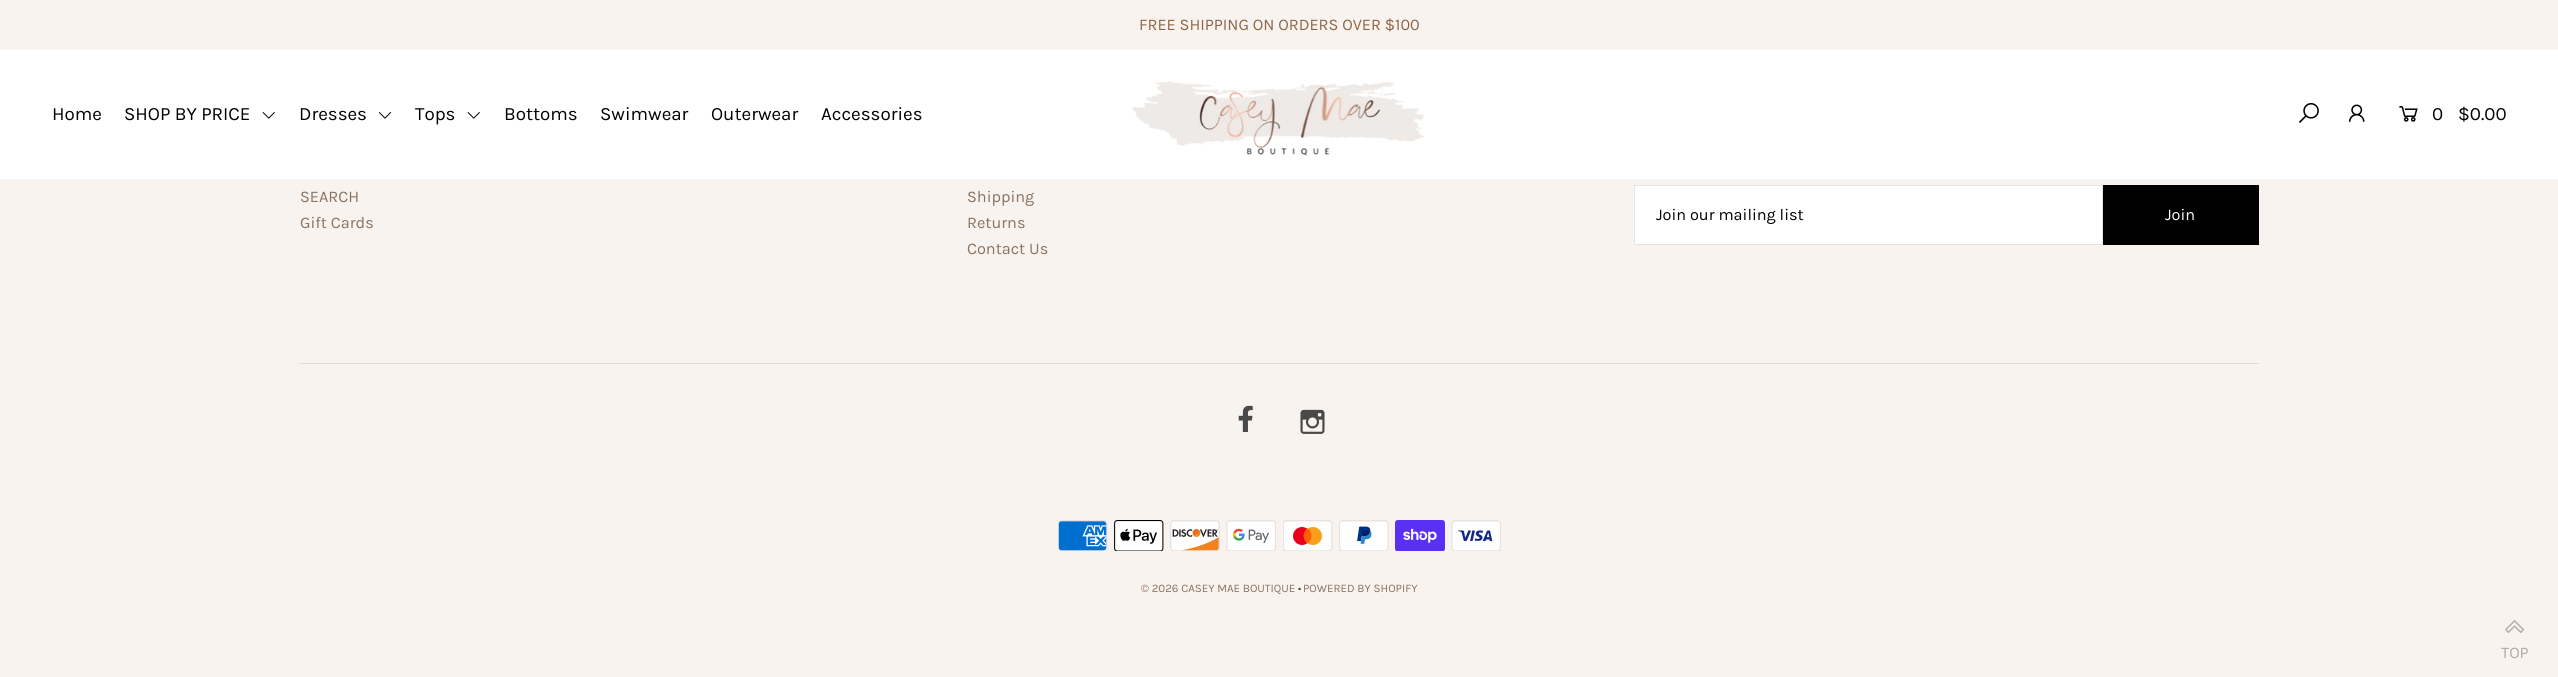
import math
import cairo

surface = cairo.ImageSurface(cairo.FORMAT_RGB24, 2558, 677)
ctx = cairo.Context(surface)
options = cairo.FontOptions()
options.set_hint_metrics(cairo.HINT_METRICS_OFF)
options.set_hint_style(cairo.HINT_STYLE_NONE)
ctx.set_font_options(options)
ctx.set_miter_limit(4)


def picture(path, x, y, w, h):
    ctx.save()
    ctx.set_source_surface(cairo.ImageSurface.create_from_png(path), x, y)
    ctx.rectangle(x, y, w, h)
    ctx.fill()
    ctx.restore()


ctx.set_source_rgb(0.973, 0.953, 0.941)
ctx.paint()
ctx.set_source_rgb(1, 1, 1)
ctx.rectangle(0, 50, 2558, 129)
ctx.fill()
ctx.select_font_face("Karla")
ctx.set_font_size(16.25)
ctx.set_source_rgb(0.553, 0.396, 0.267)
ctx.move_to(1139, 30)
ctx.show_text("FREE SHIPPING ON ORDERS OVER $100")
ctx.set_font_size(18.75)
ctx.set_source_rgb(0, 0, 0)
ctx.move_to(52, 120)
ctx.show_text("Home")
ctx.move_to(124, 120)
ctx.show_text("SHOP BY PRICE")
picture("img1.png", 262, 112, 13, 7)
ctx.move_to(299, 120)
ctx.show_text("Dresses")
picture("img2.png", 378, 112, 14, 7)
ctx.move_to(415, 120)
ctx.show_text("Tops")
picture("img1.png", 467, 112, 13, 7)
ctx.move_to(504, 120)
ctx.show_text("Bottoms")
ctx.move_to(600, 120)
ctx.show_text("Swimwear")
ctx.move_to(711, 120)
ctx.show_text("Outerwear")
ctx.move_to(821, 120)
ctx.show_text("Accessories")
picture("img3.png", 1132, 81, 292, 75)
picture("img4.png", 2298, 103, 21, 20)
picture("img5.png", 2348, 104, 17, 18)
picture("img6.png", 2399, 106, 19, 16)
ctx.move_to(2432, 120)
ctx.show_text("0")
ctx.move_to(2458, 120)
ctx.show_text("$0.00")
ctx.set_font_size(16.25)
ctx.set_source_rgb(0.537, 0.447, 0.373)
ctx.move_to(300, 202)
ctx.show_text("SEARCH")
ctx.move_to(300, 228)
ctx.show_text("Gift Cards")
ctx.move_to(967, 202)
ctx.show_text("Shipping")
ctx.move_to(967, 228)
ctx.show_text("Returns")
ctx.move_to(967, 254)
ctx.show_text("Contact Us")
ctx.set_source_rgb(1, 1, 1)
ctx.rectangle(1634.5, 185.5, 468, 59)
ctx.fill_preserve()
ctx.set_source_rgb(0.898, 0.898, 0.898)
ctx.set_line_width(1)
ctx.stroke()
ctx.set_source_rgb(0, 0, 0)
ctx.move_to(1656, 220)
ctx.show_text("Join our mailing list")
ctx.rectangle(2103, 185, 156, 60)
ctx.fill()
ctx.set_source_rgb(1, 1, 1)
ctx.move_to(2165, 220)
ctx.show_text("Join")
ctx.set_source_rgb(0.867, 0.867, 0.867)
ctx.rectangle(300, 363, 1959, 1)
ctx.fill()
picture("img7.png", 1238, 405, 15, 27)
picture("img8.png", 1300, 409, 25, 25)
picture("img9.png", 1058, 520, 50, 31)
picture("img10.png", 1114, 520, 50, 31)
picture("img11.png", 1170, 520, 50, 31)
picture("img12.png", 1226, 520, 50, 31)
picture("img13.png", 1283, 520, 50, 31)
picture("img14.png", 1339, 520, 50, 31)
picture("img15.png", 1395, 520, 50, 31)
picture("img16.png", 1451, 520, 50, 31)
ctx.set_font_size(11.5)
ctx.set_source_rgb(0.537, 0.447, 0.373)
ctx.move_to(1141, 592)
ctx.show_text("© 2026 CASEY MAE BOUTIQUE")
ctx.set_source_rgb(0.353, 0.231, 0.129)
ctx.move_to(1298, 592)
ctx.show_text("•")
ctx.set_source_rgb(0.537, 0.447, 0.373)
ctx.move_to(1303, 592)
ctx.show_text("POWERED BY SHOPIFY")
picture("img17.png", 2505, 620, 20, 13)
ctx.set_font_size(16.25)
ctx.set_source_rgb(0.682, 0.667, 0.659)
ctx.move_to(2501, 658)
ctx.show_text("TOP")
surface.write_to_png("page.png")
